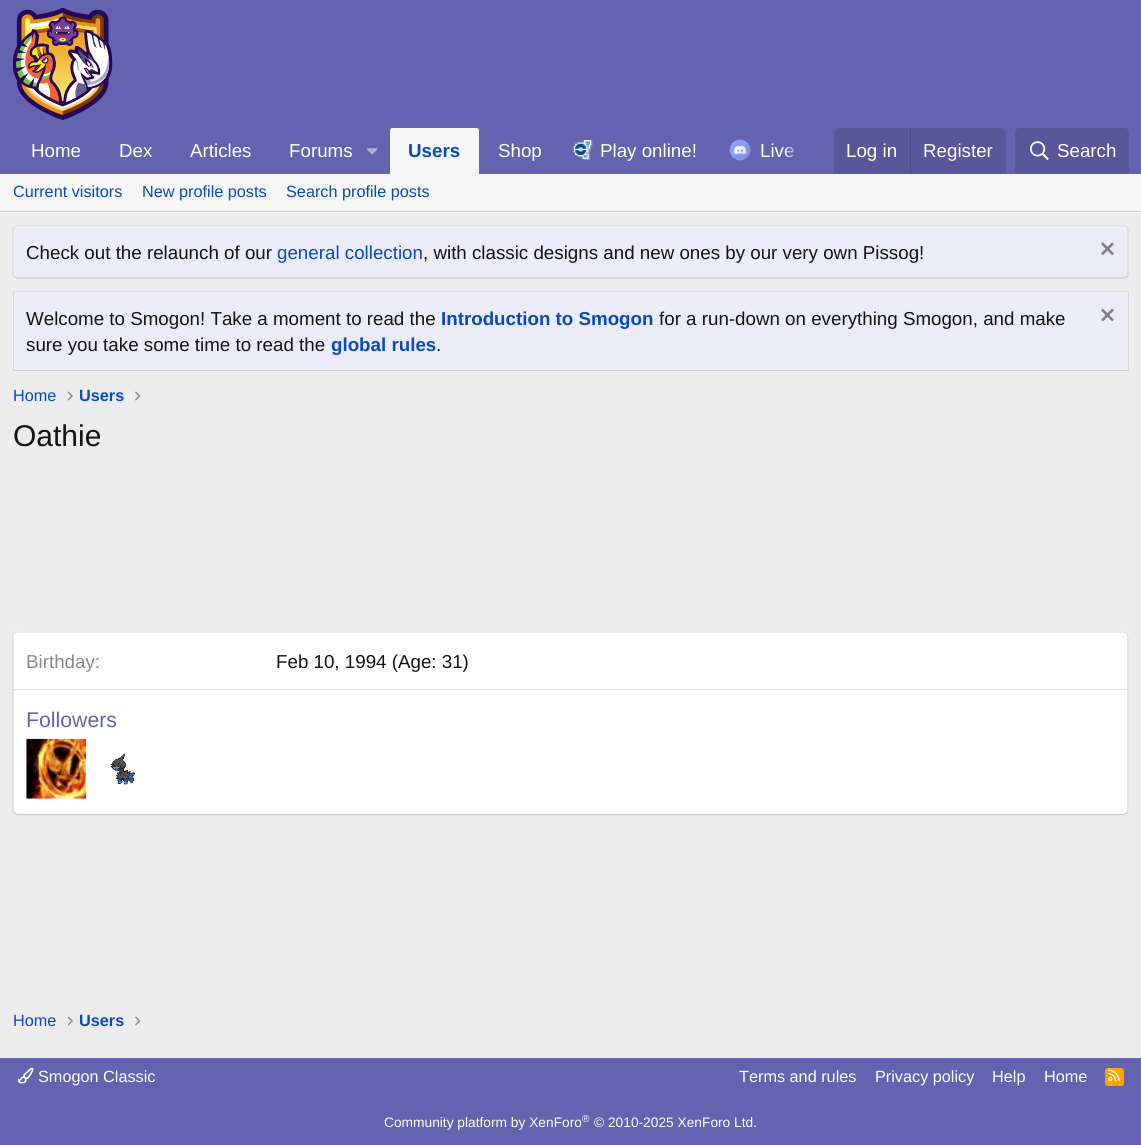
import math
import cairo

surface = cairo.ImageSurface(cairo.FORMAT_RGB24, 1141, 1145)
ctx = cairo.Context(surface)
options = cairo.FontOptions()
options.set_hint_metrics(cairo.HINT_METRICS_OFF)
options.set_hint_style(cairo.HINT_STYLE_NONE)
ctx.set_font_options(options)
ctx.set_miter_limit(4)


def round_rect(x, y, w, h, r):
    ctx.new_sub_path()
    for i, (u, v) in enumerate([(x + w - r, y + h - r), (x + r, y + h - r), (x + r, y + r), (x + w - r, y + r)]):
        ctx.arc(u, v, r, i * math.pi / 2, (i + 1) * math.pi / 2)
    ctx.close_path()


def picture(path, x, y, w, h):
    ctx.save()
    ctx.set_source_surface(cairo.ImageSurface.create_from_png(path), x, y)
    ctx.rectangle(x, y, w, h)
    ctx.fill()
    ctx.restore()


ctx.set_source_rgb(0.922, 0.922, 0.922)
ctx.paint()
ctx.set_source_rgb(0.388, 0.388, 0.69)
ctx.rectangle(0, 0, 1141, 174)
ctx.fill()
picture("img1.png", 13, 8, 100, 112)
ctx.select_font_face("Liberation Sans")
ctx.set_font_size(18.75)
ctx.set_source_rgb(1, 1, 1)
ctx.move_to(31, 157)
ctx.show_text("Home")
ctx.move_to(119, 157)
ctx.show_text("Dex")
ctx.move_to(190, 157)
ctx.show_text("Articles")
ctx.move_to(289, 157)
ctx.show_text("Forums")
picture("img2.png", 366, 148, 12, 7)
ctx.set_source_rgb(0.961, 0.961, 0.961)
ctx.new_path()
ctx.move_to(392.5, 128)
ctx.line_to(476.5, 128)
ctx.curve_to(478, 128, 479, 129, 479, 130.5)
ctx.line_to(479, 174)
ctx.line_to(390, 174)
ctx.line_to(390, 130.5)
ctx.curve_to(390, 129, 391, 128, 392.5, 128)
ctx.close_path()
ctx.fill()
ctx.select_font_face("Liberation Sans", cairo.FONT_SLANT_NORMAL, cairo.FONT_WEIGHT_BOLD)
ctx.set_source_rgb(0.035, 0.29, 0.729)
ctx.move_to(408, 157)
ctx.show_text("Users")
ctx.select_font_face("Liberation Sans")
ctx.set_source_rgb(1, 1, 1)
ctx.move_to(498, 157)
ctx.show_text("Shop")
picture("img3.png", 573, 140, 20, 20)
ctx.move_to(600, 157)
ctx.show_text("Play online!")
picture("img4.png", 729, 139, 22, 22)
ctx.move_to(760, 157)
ctx.show_text("Live")
gradient = cairo.LinearGradient(784, 151, 834, 151)
gradient.add_color_stop_rgba(0, 0.388, 0.388, 0.69, 0)
gradient.add_color_stop_rgba(0.33, 0.388, 0.388, 0.69, 1)
ctx.set_source(gradient)
ctx.rectangle(785, 146, 9, 12)
ctx.fill()
ctx.set_source_rgb(0.341, 0.341, 0.6)
ctx.new_path()
ctx.move_to(839, 128)
ctx.line_to(1001, 128)
ctx.curve_to(1004, 128, 1006, 130, 1006, 133)
ctx.line_to(1006, 174)
ctx.line_to(834, 174)
ctx.line_to(834, 133)
ctx.curve_to(834, 130, 836, 128, 839, 128)
ctx.close_path()
ctx.fill()
ctx.set_source_rgb(1, 1, 1)
ctx.move_to(846, 157)
ctx.show_text("Log in")
ctx.set_source_rgb(0.302, 0.302, 0.522)
ctx.rectangle(910, 128, 1, 46)
ctx.fill()
ctx.set_source_rgb(1, 1, 1)
ctx.move_to(923, 157)
ctx.show_text("Register")
ctx.set_source_rgb(0.341, 0.341, 0.6)
ctx.new_path()
ctx.move_to(1020, 128)
ctx.line_to(1124, 128)
ctx.curve_to(1127, 128, 1129, 130, 1129, 133)
ctx.line_to(1129, 174)
ctx.line_to(1015, 174)
ctx.line_to(1015, 133)
ctx.curve_to(1015, 130, 1017, 128, 1020, 128)
ctx.close_path()
ctx.fill()
picture("img5.png", 1030, 141, 19, 19)
ctx.set_source_rgb(1, 1, 1)
ctx.move_to(1057, 157)
ctx.show_text("Search")
ctx.set_source_rgb(0.961, 0.961, 0.961)
ctx.rectangle(0, 174, 1141, 39)
ctx.fill()
ctx.set_source_rgb(0.8, 0.8, 0.8)
ctx.rectangle(0, 211, 1141, 1)
ctx.fill()
ctx.set_font_size(16.25)
ctx.set_source_rgb(0.035, 0.29, 0.729)
ctx.move_to(13, 197)
ctx.show_text("Current visitors")
ctx.move_to(142, 197)
ctx.show_text("New profile posts")
ctx.move_to(286, 197)
ctx.show_text("Search profile posts")
ctx.set_source_rgb(0.922, 0.922, 0.969)
round_rect(13, 225, 1116, 54, 5)
ctx.fill()
ctx.new_path()
ctx.move_to(14.5, 227)
ctx.line_to(17.5, 225.5)
ctx.line_to(1124, 225.5)
ctx.line_to(1127, 227)
ctx.set_source_rgb(0.878, 0.878, 0.878)
ctx.set_line_width(1.2)
ctx.stroke()
ctx.new_path()
ctx.move_to(1127, 227)
ctx.curve_to(1127.5, 227.5, 1128, 229, 1128, 230)
ctx.line_to(1128, 274)
ctx.curve_to(1128, 275, 1127.5, 276, 1127, 277)
ctx.set_source_rgb(0.839, 0.839, 0.839)
ctx.stroke()
ctx.new_path()
ctx.move_to(1127, 277)
ctx.line_to(1124, 278)
ctx.line_to(17.5, 278)
ctx.line_to(14.5, 277)
ctx.set_source_rgb(0.8, 0.8, 0.8)
ctx.stroke()
ctx.new_path()
ctx.move_to(14.5, 277)
ctx.curve_to(13.5, 276, 13, 275, 13, 274)
ctx.line_to(13, 230)
ctx.curve_to(13, 229, 13.5, 227.5, 14.5, 227)
ctx.set_source_rgb(0.839, 0.839, 0.839)
ctx.stroke()
ctx.set_font_size(18.75)
ctx.set_source_rgb(0.078, 0.078, 0.078)
ctx.move_to(26, 259)
ctx.show_text("Check out the relaunch of our")
ctx.set_source_rgb(0.035, 0.29, 0.729)
ctx.move_to(277, 259)
ctx.show_text("general collection")
ctx.set_source_rgb(0.078, 0.078, 0.078)
ctx.move_to(423, 259)
ctx.show_text(", with classic designs and new ones by our very own Pissog!")
picture("img6.png", 1101, 242, 13, 13)
ctx.set_source_rgb(0.878, 0.878, 0.878)
ctx.rectangle(13, 291, 1116, 1)
ctx.fill()
ctx.set_source_rgb(0.839, 0.839, 0.839)
ctx.rectangle(1128, 291, 1, 80)
ctx.fill()
ctx.set_source_rgb(0.8, 0.8, 0.8)
ctx.rectangle(13, 370, 1116, 1)
ctx.fill()
ctx.set_source_rgb(0.839, 0.839, 0.839)
ctx.rectangle(13, 291, 1, 80)
ctx.fill()
ctx.set_source_rgb(0.922, 0.922, 0.969)
ctx.rectangle(14, 293, 1114, 77)
ctx.fill()
ctx.set_source_rgb(0.078, 0.078, 0.078)
ctx.move_to(26, 325)
ctx.show_text("Welcome to Smogon! Take a moment to read the")
ctx.select_font_face("Liberation Sans", cairo.FONT_SLANT_NORMAL, cairo.FONT_WEIGHT_BOLD)
ctx.set_source_rgb(0.035, 0.29, 0.729)
ctx.move_to(441, 325)
ctx.show_text("Introduction to Smogon")
ctx.select_font_face("Liberation Sans")
ctx.set_source_rgb(0.078, 0.078, 0.078)
ctx.move_to(659, 325)
ctx.show_text("for a run-down on everything Smogon, and make")
picture("img7.png", 1101, 308, 13, 14)
ctx.move_to(26, 351)
ctx.show_text("sure you take some time to read the")
ctx.select_font_face("Liberation Sans", cairo.FONT_SLANT_NORMAL, cairo.FONT_WEIGHT_BOLD)
ctx.set_source_rgb(0.035, 0.29, 0.729)
ctx.move_to(331, 351)
ctx.show_text("global rules")
ctx.select_font_face("Liberation Sans")
ctx.set_source_rgb(0.078, 0.078, 0.078)
ctx.move_to(436, 351)
ctx.show_text(".")
ctx.set_font_size(16.25)
ctx.set_source_rgb(0.035, 0.29, 0.729)
ctx.move_to(13, 401)
ctx.show_text("Home")
picture("img8.png", 68, 391, 5, 10)
ctx.select_font_face("Liberation Sans", cairo.FONT_SLANT_NORMAL, cairo.FONT_WEIGHT_BOLD)
ctx.move_to(79, 401)
ctx.show_text("Users")
picture("img9.png", 135, 391, 6, 10)
ctx.select_font_face("Liberation Sans")
ctx.set_font_size(30)
ctx.set_source_rgb(0.078, 0.078, 0.078)
ctx.move_to(13, 446)
ctx.show_text("Oathie")
ctx.set_source_rgb(1, 1, 1)
round_rect(13, 631, 1116, 184, 5)
ctx.fill()
ctx.new_path()
ctx.move_to(14.5, 633)
ctx.line_to(17.5, 632)
ctx.line_to(1124, 632)
ctx.line_to(1127, 633)
ctx.set_source_rgb(0.878, 0.878, 0.878)
ctx.stroke()
ctx.new_path()
ctx.move_to(1127, 633)
ctx.curve_to(1127.5, 634, 1128, 635, 1128, 636)
ctx.line_to(1128, 810)
ctx.curve_to(1128, 811, 1127.5, 812.5, 1127, 813)
ctx.set_source_rgb(0.839, 0.839, 0.839)
ctx.stroke()
ctx.new_path()
ctx.move_to(1127, 813)
ctx.line_to(1124, 814.5)
ctx.line_to(17.5, 814.5)
ctx.line_to(14.5, 813)
ctx.set_source_rgb(0.8, 0.8, 0.8)
ctx.stroke()
ctx.new_path()
ctx.move_to(14.5, 813)
ctx.curve_to(13.5, 812.5, 13, 811, 13, 810)
ctx.line_to(13, 636)
ctx.curve_to(13, 635, 13.5, 634, 14.5, 633)
ctx.set_source_rgb(0.839, 0.839, 0.839)
ctx.stroke()
ctx.set_font_size(18.75)
ctx.set_source_rgb(0.541, 0.541, 0.541)
ctx.move_to(26, 668)
ctx.show_text("Birthday:")
ctx.set_source_rgb(0.078, 0.078, 0.078)
ctx.move_to(276, 668)
ctx.show_text("Feb 10, 1994 (Age: 31)")
ctx.set_source_rgb(0.878, 0.878, 0.878)
ctx.rectangle(14, 689, 1114, 1)
ctx.fill()
ctx.set_font_size(21.25)
ctx.set_source_rgb(0.388, 0.388, 0.69)
ctx.move_to(26, 727)
ctx.show_text("Followers")
picture("img10.png", 26, 738, 61, 61)
picture("img11.png", 111, 753, 24, 32)
ctx.set_font_size(16.25)
ctx.set_source_rgb(0.035, 0.29, 0.729)
ctx.move_to(13, 1026)
ctx.show_text("Home")
picture("img8.png", 68, 1016, 5, 10)
ctx.select_font_face("Liberation Sans", cairo.FONT_SLANT_NORMAL, cairo.FONT_WEIGHT_BOLD)
ctx.move_to(79, 1026)
ctx.show_text("Users")
picture("img9.png", 135, 1016, 6, 10)
ctx.set_source_rgb(0.388, 0.388, 0.69)
ctx.rectangle(0, 1058, 1141, 87)
ctx.fill()
picture("img12.png", 17, 1067, 17, 17)
ctx.select_font_face("Liberation Sans")
ctx.set_source_rgb(1, 1, 1)
ctx.move_to(38, 1082)
ctx.show_text("Smogon Classic")
ctx.move_to(739, 1082)
ctx.show_text("Terms and rules")
ctx.move_to(875, 1082)
ctx.show_text("Privacy policy")
ctx.move_to(992, 1082)
ctx.show_text("Help")
ctx.move_to(1044, 1082)
ctx.show_text("Home")
ctx.set_source_rgb(1, 0.647, 0)
round_rect(1105, 1068, 19, 18, 2.5)
ctx.fill()
picture("img13.png", 1108, 1069, 12, 12)
ctx.set_font_size(13.75)
ctx.set_source_rgb(1, 1, 1)
ctx.move_to(384, 1127)
ctx.show_text("Community platform by XenForo")
ctx.set_font_size(10)
ctx.move_to(582, 1122)
ctx.show_text("®")
ctx.set_font_size(13.75)
ctx.move_to(594, 1127)
ctx.show_text("© 2010-2025 XenForo Ltd.")
surface.write_to_png("page.png")
